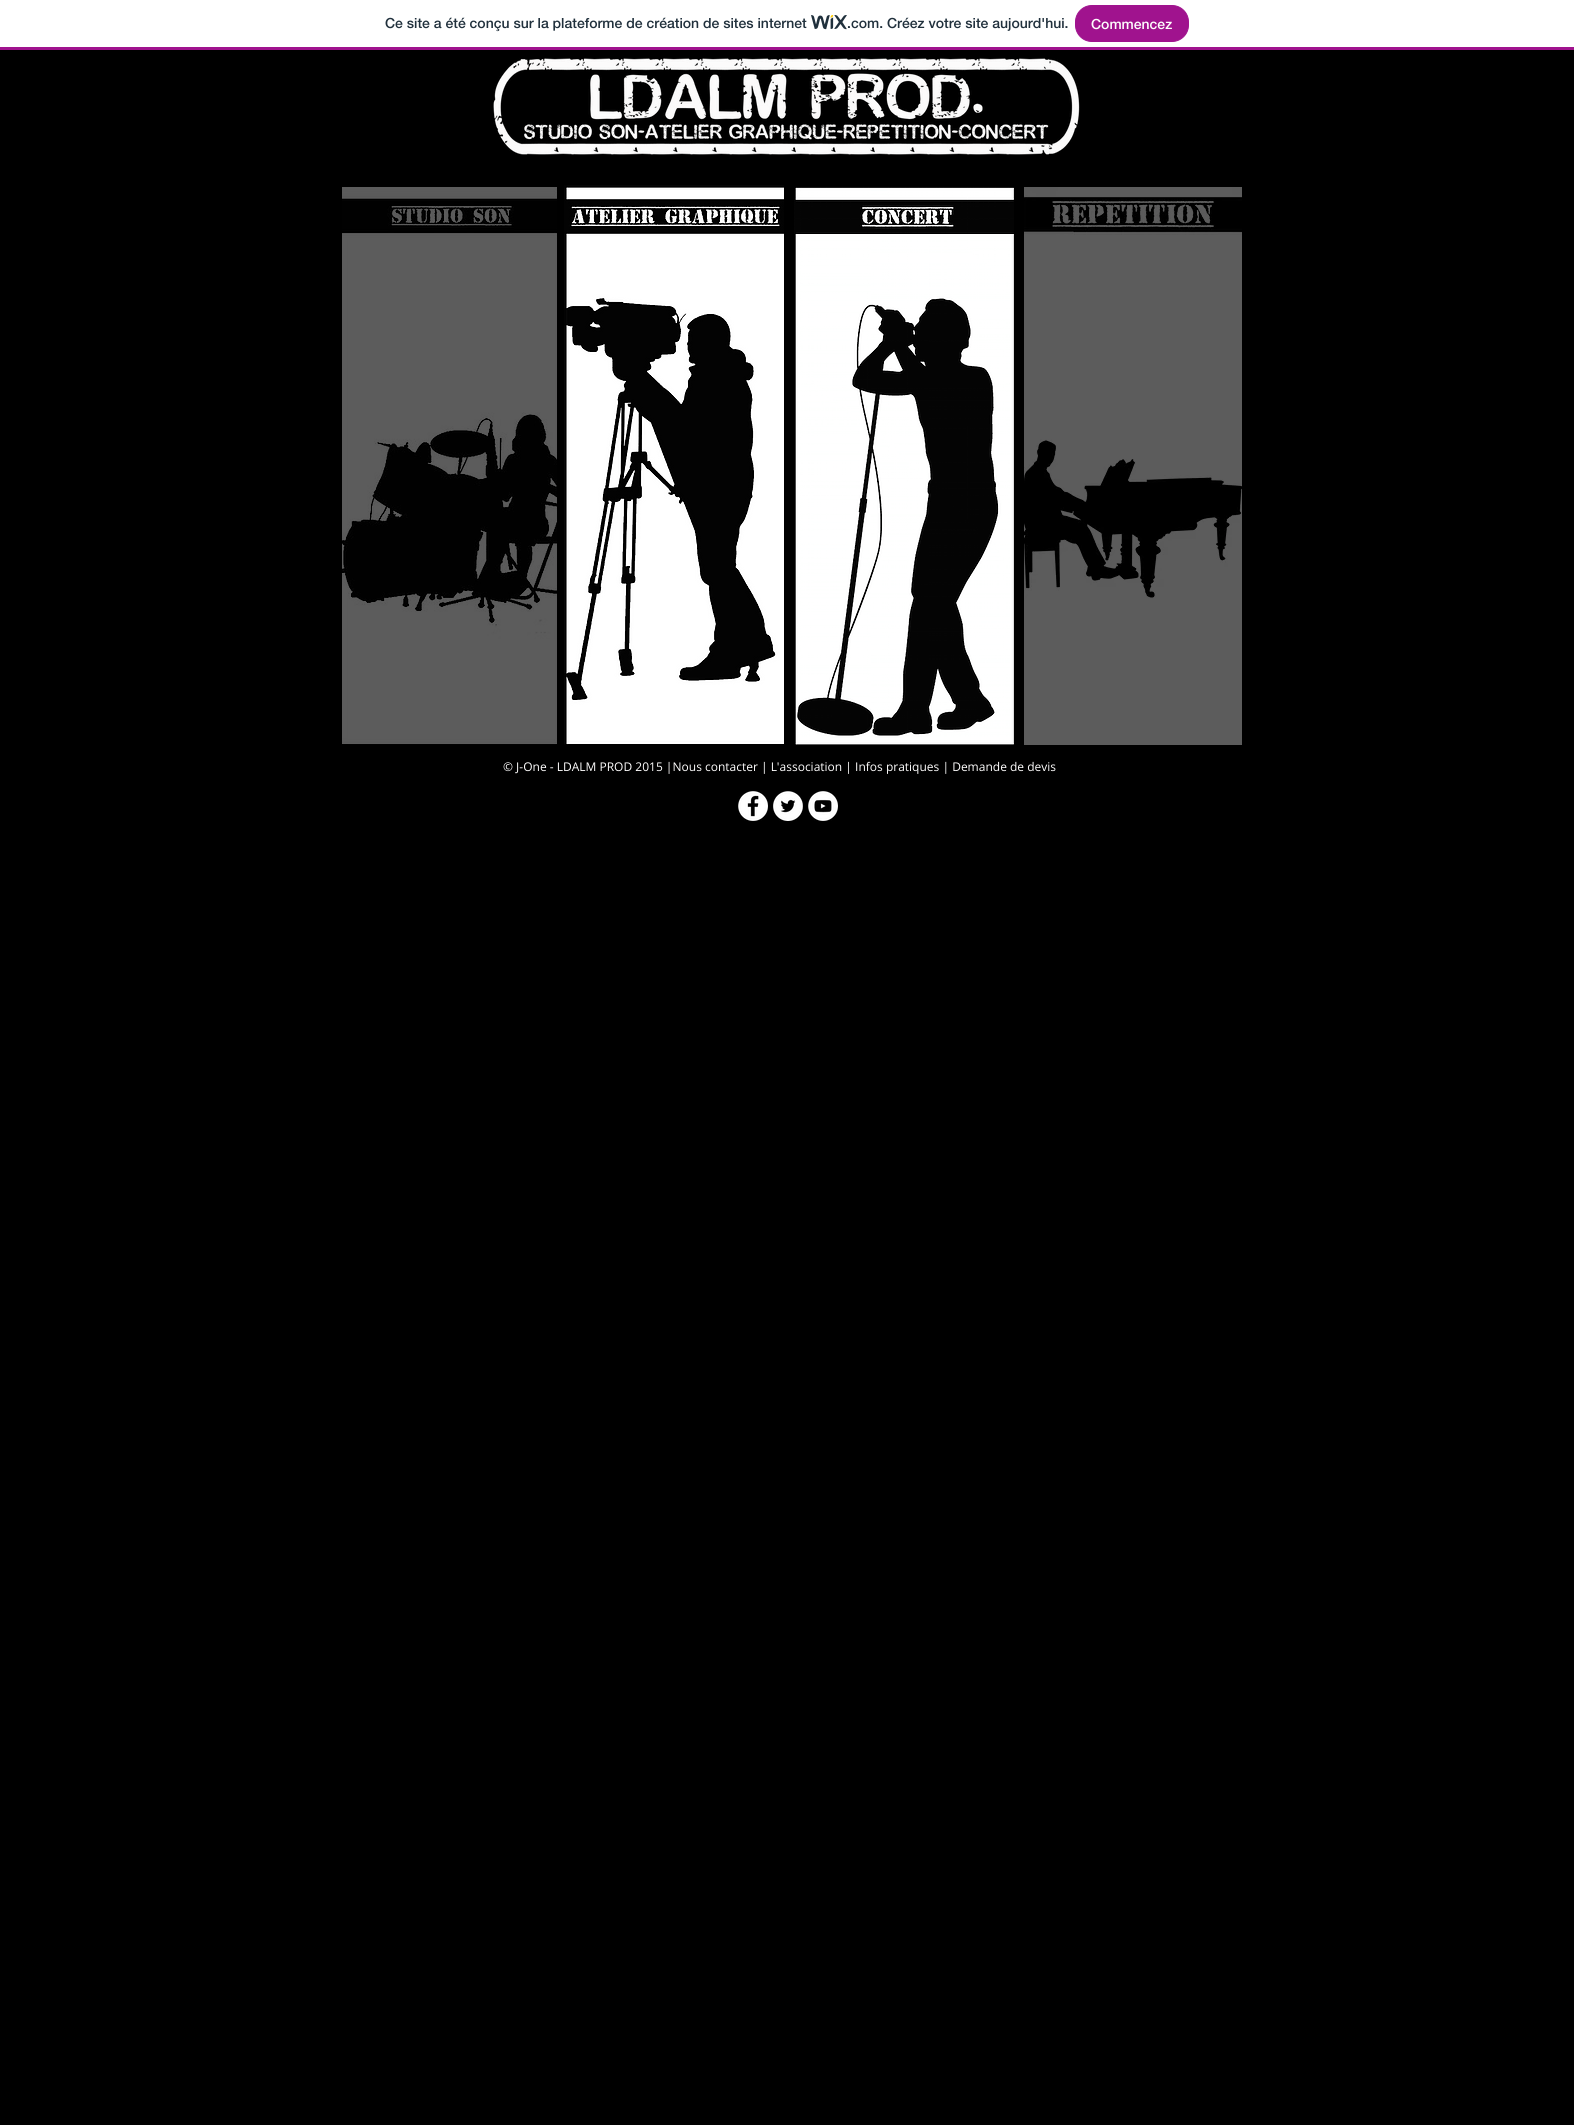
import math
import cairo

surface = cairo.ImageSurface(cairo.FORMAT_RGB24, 1574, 2125)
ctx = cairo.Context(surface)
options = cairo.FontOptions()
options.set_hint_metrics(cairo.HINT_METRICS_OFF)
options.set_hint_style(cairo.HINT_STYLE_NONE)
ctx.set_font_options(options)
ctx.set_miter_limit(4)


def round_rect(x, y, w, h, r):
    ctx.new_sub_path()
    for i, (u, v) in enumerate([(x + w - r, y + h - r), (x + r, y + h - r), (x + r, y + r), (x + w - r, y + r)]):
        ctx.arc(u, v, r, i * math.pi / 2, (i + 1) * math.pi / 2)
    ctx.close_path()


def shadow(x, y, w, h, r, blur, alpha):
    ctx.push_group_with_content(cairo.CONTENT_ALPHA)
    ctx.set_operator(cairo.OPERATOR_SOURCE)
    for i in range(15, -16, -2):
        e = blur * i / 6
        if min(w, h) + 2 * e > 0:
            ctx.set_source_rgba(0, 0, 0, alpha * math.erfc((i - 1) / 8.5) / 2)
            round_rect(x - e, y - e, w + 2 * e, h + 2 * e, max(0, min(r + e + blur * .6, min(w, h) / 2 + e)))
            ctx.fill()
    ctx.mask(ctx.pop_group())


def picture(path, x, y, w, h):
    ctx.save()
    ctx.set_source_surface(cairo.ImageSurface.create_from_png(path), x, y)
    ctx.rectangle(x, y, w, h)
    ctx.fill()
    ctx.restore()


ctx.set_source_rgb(1, 1, 1)
ctx.paint()
ctx.set_source_rgb(0.627, 0.075, 0.557)
ctx.rectangle(0, 47, 1574, 3)
ctx.fill()
ctx.select_font_face("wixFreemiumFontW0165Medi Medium")
ctx.set_font_size(14)
ctx.set_source_rgb(0.125, 0.188, 0.235)
ctx.move_to(385, 28)
ctx.show_text("Ce site a été conçu sur la plateforme de création de sites internet")
picture("img1.png", 811, 15, 36, 15)
ctx.move_to(847, 28)
ctx.show_text(".com. Créez votre site aujourd'hui.")
ctx.set_source_rgb(0.627, 0.075, 0.557)
round_rect(1075.5, 5.5, 113, 36, 16.5)
ctx.fill_preserve()
ctx.set_line_width(1)
ctx.stroke()
ctx.set_source_rgb(0.996, 0.992, 0.992)
ctx.move_to(1091, 29)
ctx.show_text("Commencez")
ctx.set_source_rgb(0, 0, 0)
ctx.rectangle(0, 50, 1574, 2075)
ctx.fill()
picture("img2.png", 493, 58, 587, 97)
picture("img3.png", 342, 187, 215, 558)
picture("img4.png", 564, 185, 220, 560)
picture("img5.png", 794, 187, 220, 558)
picture("img6.png", 1024, 187, 218, 558)
ctx.save()
ctx.set_fill_rule(cairo.FILL_RULE_EVEN_ODD)
ctx.new_path()
ctx.move_to(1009, 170)
ctx.line_to(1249, 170)
ctx.line_to(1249, 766)
ctx.line_to(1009, 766)
ctx.close_path()
ctx.move_to(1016, 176)
ctx.line_to(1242, 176)
ctx.line_to(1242, 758)
ctx.line_to(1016, 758)
ctx.close_path()
ctx.clip()
ctx.set_source_rgb(0, 0, 0)
shadow(1016, 177, 226, 582, 0, 2, 0.6)
ctx.restore()
ctx.select_font_face("Open Sans")
ctx.set_font_size(12)
ctx.set_source_rgb(0.996, 0.992, 0.992)
ctx.move_to(503, 771)
ctx.show_text("© J-One - LDALM PROD 2015 |Nous contacter | L'association | Infos pratiques | Demande de devis")
picture("img7.png", 738, 791, 30, 30)
picture("img8.png", 773, 791, 30, 30)
picture("img9.png", 808, 791, 30, 30)
surface.write_to_png("page.png")
